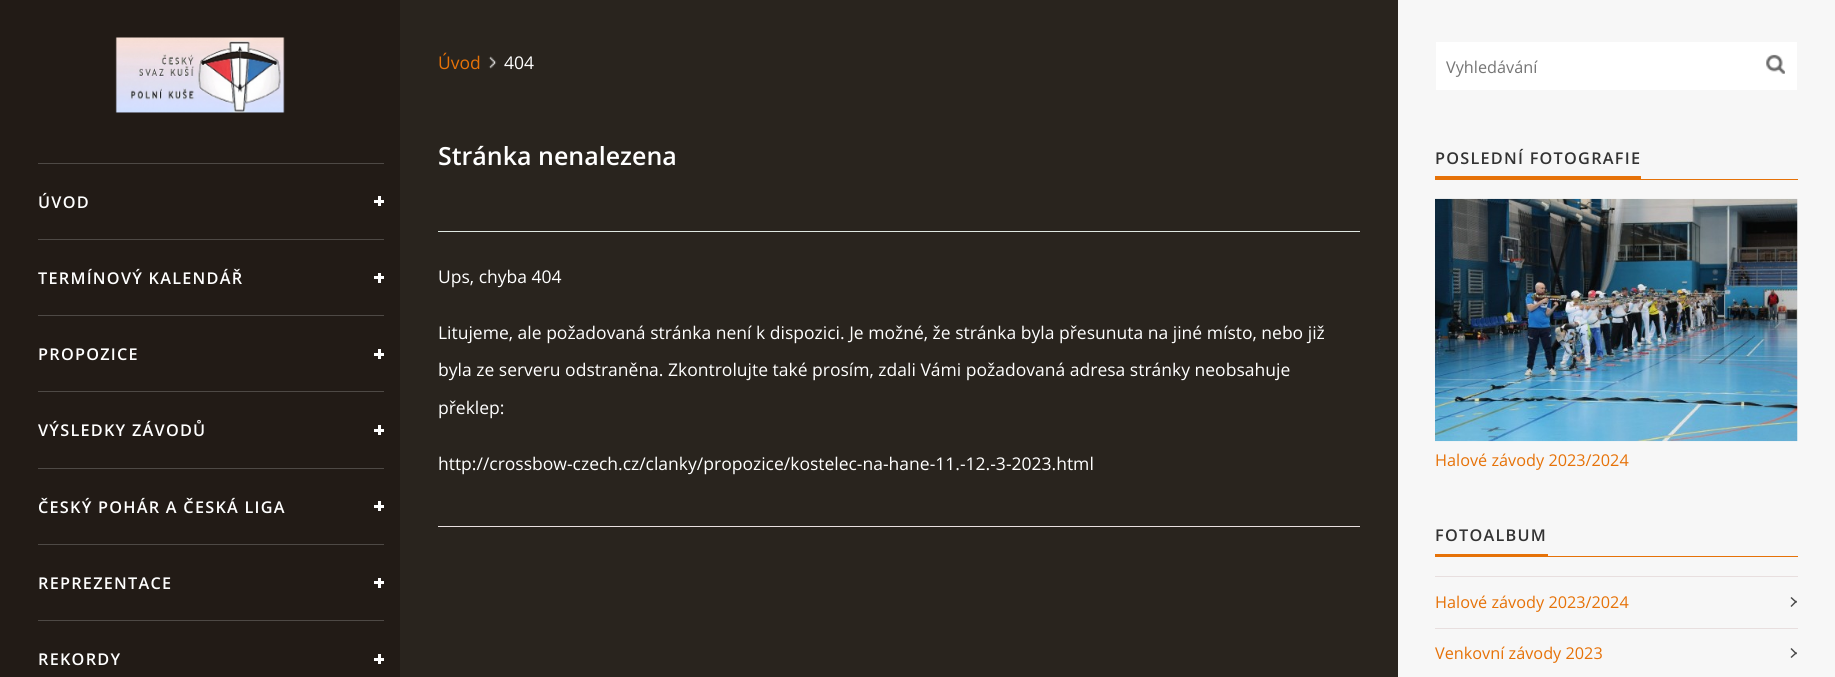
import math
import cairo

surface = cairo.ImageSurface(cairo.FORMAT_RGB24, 1835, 677)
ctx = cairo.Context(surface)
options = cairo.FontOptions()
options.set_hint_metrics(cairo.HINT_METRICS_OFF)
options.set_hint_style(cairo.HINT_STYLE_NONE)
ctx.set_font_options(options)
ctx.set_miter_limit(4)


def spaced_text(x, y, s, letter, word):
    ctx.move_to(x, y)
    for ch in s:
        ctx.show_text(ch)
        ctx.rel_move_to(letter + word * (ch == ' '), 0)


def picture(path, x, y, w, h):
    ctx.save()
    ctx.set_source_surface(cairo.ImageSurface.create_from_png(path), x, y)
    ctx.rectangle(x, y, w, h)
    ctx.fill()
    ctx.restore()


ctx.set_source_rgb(0.161, 0.141, 0.118)
ctx.paint()
ctx.set_source_rgb(0.133, 0.106, 0.086)
ctx.rectangle(0, 0, 400, 677)
ctx.fill()
picture("img1.png", 115, 37, 170, 76)
ctx.set_source_rgb(0.306, 0.286, 0.271)
ctx.rectangle(38, 163, 346, 1)
ctx.fill()
ctx.select_font_face("Open Sans SemiBold")
ctx.set_font_size(16.25)
ctx.set_source_rgb(1, 1, 1)
spaced_text(38, 208, "ÚVOD", 1.25, 0)
ctx.rectangle(374, 200, 10, 3)
ctx.fill()
ctx.rectangle(378, 196, 3, 10)
ctx.fill()
ctx.set_source_rgb(0.306, 0.286, 0.271)
ctx.rectangle(38, 239, 346, 1)
ctx.fill()
ctx.set_source_rgb(1, 1, 1)
spaced_text(38, 284, "TERMÍNOVÝ KALENDÁŘ", 1.25, 0)
ctx.rectangle(374, 276, 10, 3)
ctx.fill()
ctx.rectangle(378, 273, 3, 10)
ctx.fill()
ctx.set_source_rgb(0.306, 0.286, 0.271)
ctx.rectangle(38, 315, 346, 1)
ctx.fill()
ctx.set_source_rgb(1, 1, 1)
spaced_text(38, 360, "PROPOZICE", 1.25, 0)
ctx.rectangle(374, 353, 10, 3)
ctx.fill()
ctx.rectangle(378, 349, 3, 10)
ctx.fill()
ctx.set_source_rgb(0.306, 0.286, 0.271)
ctx.rectangle(38, 391, 346, 1)
ctx.fill()
ctx.set_source_rgb(1, 1, 1)
spaced_text(38, 436, "VÝSLEDKY ZÁVODŮ", 1.25, 0)
ctx.rectangle(374, 429, 10, 3)
ctx.fill()
ctx.rectangle(378, 425, 3, 10)
ctx.fill()
ctx.set_source_rgb(0.306, 0.286, 0.271)
ctx.rectangle(38, 468, 346, 1)
ctx.fill()
ctx.set_source_rgb(1, 1, 1)
spaced_text(38, 513, "ČESKÝ POHÁR A ČESKÁ LIGA", 1.25, 0)
ctx.rectangle(374, 505, 10, 3)
ctx.fill()
ctx.rectangle(378, 501, 3, 10)
ctx.fill()
ctx.set_source_rgb(0.306, 0.286, 0.271)
ctx.rectangle(38, 544, 346, 1)
ctx.fill()
ctx.set_source_rgb(1, 1, 1)
spaced_text(38, 589, "REPREZENTACE", 1.25, 0)
ctx.rectangle(374, 581, 10, 3)
ctx.fill()
ctx.rectangle(378, 578, 3, 10)
ctx.fill()
ctx.set_source_rgb(0.306, 0.286, 0.271)
ctx.rectangle(38, 620, 346, 1)
ctx.fill()
ctx.set_source_rgb(1, 1, 1)
spaced_text(38, 665, "REKORDY", 1.25, 0)
ctx.rectangle(374, 658, 10, 3)
ctx.fill()
ctx.rectangle(378, 654, 3, 10)
ctx.fill()
picture("img2.png", 488, 56, 9, 13)
ctx.select_font_face("Open Sans")
ctx.set_font_size(17.5)
ctx.set_source_rgb(0.902, 0.447, 0.035)
ctx.move_to(438, 69)
ctx.show_text("Úvod")
ctx.set_source_rgb(1, 1, 1)
ctx.move_to(504, 69)
ctx.show_text("404")
ctx.set_source_rgb(0.91, 0.875, 0.875)
ctx.rectangle(438, 526, 922, 1)
ctx.fill()
ctx.select_font_face("Open Sans SemiBold")
ctx.set_font_size(25)
ctx.set_source_rgb(1, 1, 1)
ctx.move_to(438, 165)
ctx.show_text("Stránka nenalezena")
ctx.set_source_rgb(0.875, 0.91, 0.886)
ctx.rectangle(438, 231, 922, 1)
ctx.fill()
ctx.select_font_face("Open Sans")
ctx.set_font_size(17.5)
ctx.set_source_rgb(1, 1, 1)
ctx.move_to(438, 283)
ctx.show_text("Ups, chyba 404")
ctx.move_to(438, 339)
ctx.show_text("Litujeme, ale požadovaná stránka není k dispozici. Je možné, že stránka byla přesunuta na jiné místo, nebo již")
ctx.move_to(438, 376)
ctx.show_text("byla ze serveru odstraněna. Zkontrolujte také prosím, zdali Vámi požadovaná adresa stránky neobsahuje")
ctx.move_to(438, 414)
ctx.show_text("překlep:")
ctx.move_to(438, 470)
ctx.show_text("http://crossbow-czech.cz/clanky/propozice/kostelec-na-hane-11.-12.-3-2023.html")
ctx.set_source_rgb(0.965, 0.965, 0.965)
ctx.rectangle(1398, 0, 437, 677)
ctx.fill()
ctx.set_source_rgb(1, 1, 1)
ctx.rectangle(1436, 42, 361, 48)
ctx.fill()
ctx.set_font_size(16.25)
ctx.set_source_rgb(0.459, 0.459, 0.459)
ctx.move_to(1446, 73)
ctx.show_text("Vyhledávání")
picture("img3.png", 1766, 54, 19, 20)
ctx.select_font_face("Open Sans SemiBold")
ctx.set_source_rgb(0.2, 0.2, 0.2)
spaced_text(1435, 164, "POSLEDNÍ FOTOGRAFIE", 1.25, 0)
ctx.set_source_rgb(0.902, 0.447, 0.035)
ctx.rectangle(1435, 176, 206, 3)
ctx.fill()
ctx.rectangle(1435, 179, 363, 1)
ctx.fill()
picture("img4.png", 1435, 198, 363, 244)
ctx.select_font_face("Open Sans")
ctx.move_to(1435, 466)
ctx.show_text("Halové závody 2023/2024")
ctx.select_font_face("Open Sans SemiBold")
ctx.set_source_rgb(0.2, 0.2, 0.2)
spaced_text(1435, 541, "FOTOALBUM", 1.25, 0)
ctx.set_source_rgb(0.902, 0.447, 0.035)
ctx.rectangle(1435, 554, 113, 2)
ctx.fill()
ctx.rectangle(1435, 556, 363, 1)
ctx.fill()
ctx.set_source_rgb(0.91, 0.875, 0.875)
ctx.rectangle(1435, 576, 363, 1)
ctx.fill()
ctx.rectangle(1435, 628, 363, 1)
ctx.fill()
ctx.select_font_face("Open Sans")
ctx.set_source_rgb(0.902, 0.447, 0.035)
ctx.move_to(1435, 608)
ctx.show_text("Halové závody 2023/2024")
ctx.set_source_rgb(0.282, 0.282, 0.282)
ctx.new_path()
ctx.move_to(1791.5, 597)
ctx.line_to(1797, 602)
ctx.line_to(1796, 603)
ctx.line_to(1790.5, 598)
ctx.close_path()
ctx.fill()
ctx.new_path()
ctx.move_to(1790.5, 606)
ctx.line_to(1796, 600.5)
ctx.line_to(1797, 601.5)
ctx.line_to(1791.5, 607)
ctx.close_path()
ctx.fill()
ctx.set_source_rgb(0.902, 0.447, 0.035)
ctx.move_to(1435, 659)
ctx.show_text("Venkovní závody 2023")
ctx.set_source_rgb(0.282, 0.282, 0.282)
ctx.new_path()
ctx.move_to(1791.5, 648)
ctx.line_to(1797, 653.5)
ctx.line_to(1796, 654.5)
ctx.line_to(1790.5, 649)
ctx.close_path()
ctx.fill()
ctx.new_path()
ctx.move_to(1790.5, 657)
ctx.line_to(1796, 652)
ctx.line_to(1797, 653)
ctx.line_to(1791.5, 658)
ctx.close_path()
ctx.fill()
surface.write_to_png("page.png")
